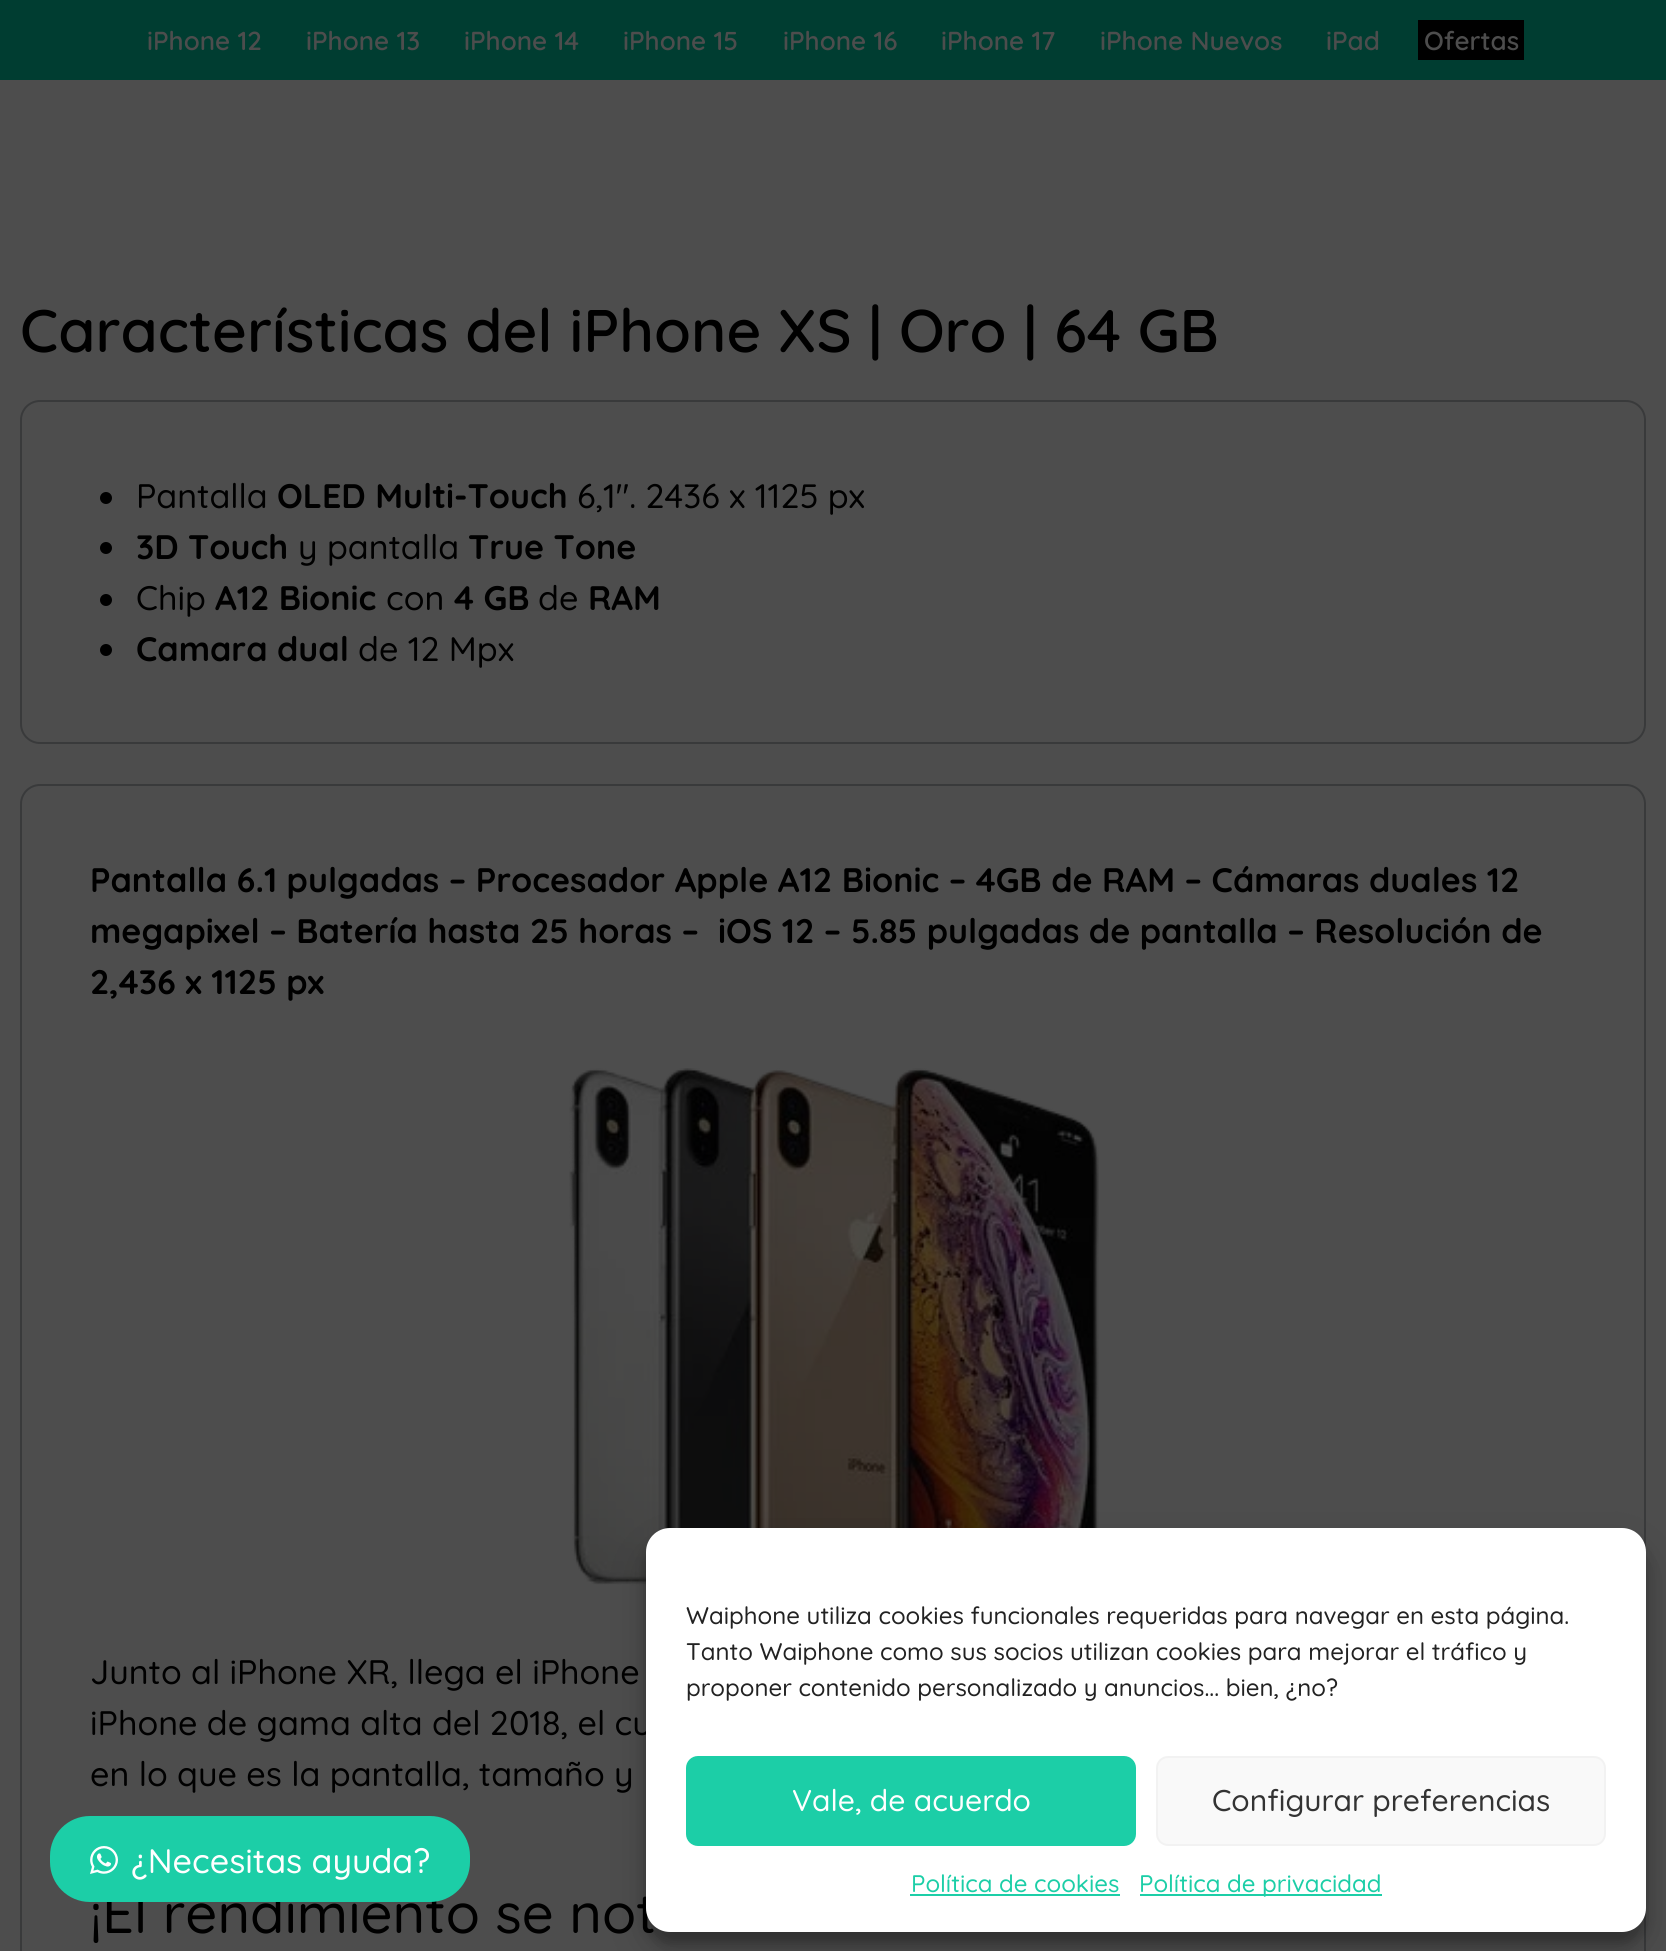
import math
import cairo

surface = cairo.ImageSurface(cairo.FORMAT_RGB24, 1666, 1951)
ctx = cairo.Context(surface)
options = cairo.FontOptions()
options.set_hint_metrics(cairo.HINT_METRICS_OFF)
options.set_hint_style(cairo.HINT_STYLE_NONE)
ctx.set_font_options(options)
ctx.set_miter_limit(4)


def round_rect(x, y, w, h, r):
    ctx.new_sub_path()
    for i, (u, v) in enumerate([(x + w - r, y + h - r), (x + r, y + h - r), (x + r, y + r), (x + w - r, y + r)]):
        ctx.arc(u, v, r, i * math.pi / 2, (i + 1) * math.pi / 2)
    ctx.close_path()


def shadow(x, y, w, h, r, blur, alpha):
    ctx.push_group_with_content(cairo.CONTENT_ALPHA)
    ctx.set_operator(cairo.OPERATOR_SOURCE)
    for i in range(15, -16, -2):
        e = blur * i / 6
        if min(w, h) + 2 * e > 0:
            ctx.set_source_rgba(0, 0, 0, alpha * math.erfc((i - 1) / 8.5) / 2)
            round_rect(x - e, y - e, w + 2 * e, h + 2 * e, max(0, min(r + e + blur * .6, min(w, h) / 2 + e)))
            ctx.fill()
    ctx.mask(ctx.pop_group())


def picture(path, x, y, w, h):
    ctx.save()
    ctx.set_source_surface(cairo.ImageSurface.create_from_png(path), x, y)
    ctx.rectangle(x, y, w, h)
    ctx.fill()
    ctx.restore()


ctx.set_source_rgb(0.302, 0.302, 0.302)
ctx.paint()
ctx.set_source_rgb(0, 0.239, 0.192)
ctx.rectangle(0, 0, 1666, 80)
ctx.fill()
ctx.select_font_face("Quicksand SemiBold")
ctx.set_font_size(26)
ctx.set_source_rgb(0.302, 0.302, 0.302)
ctx.move_to(147, 50)
ctx.show_text("iPhone 12")
ctx.move_to(306, 50)
ctx.show_text("iPhone 13")
ctx.move_to(464, 50)
ctx.show_text("iPhone 14")
ctx.move_to(623, 50)
ctx.show_text("iPhone 15")
ctx.move_to(783, 50)
ctx.show_text("iPhone 16")
ctx.move_to(941, 50)
ctx.show_text("iPhone 17")
ctx.move_to(1100, 50)
ctx.show_text("iPhone Nuevos")
ctx.move_to(1326, 50)
ctx.show_text("iPad")
ctx.set_source_rgb(0, 0, 0)
ctx.rectangle(1418, 20, 106, 40)
ctx.fill()
ctx.set_source_rgb(0.302, 0.302, 0.302)
ctx.move_to(1424, 50)
ctx.show_text("Ofertas")
ctx.set_font_size(60)
ctx.set_source_rgb(0, 0, 0)
ctx.move_to(20, 352)
ctx.show_text("Características del iPhone XS | Oro | 64 GB")
round_rect(21, 401, 1624, 342, 19)
ctx.set_source_rgb(0.224, 0.227, 0.231)
ctx.stroke()
ctx.set_source_rgb(0, 0, 0)
ctx.arc(106, 498, 6, 0, 2 * math.pi)
ctx.fill()
ctx.select_font_face("Quicksand Medium")
ctx.set_font_size(34)
ctx.move_to(136, 508)
ctx.show_text("Pantalla")
ctx.select_font_face("Quicksand", cairo.FONT_SLANT_NORMAL, cairo.FONT_WEIGHT_BOLD)
ctx.move_to(277, 508)
ctx.show_text("OLED Multi-Touch")
ctx.select_font_face("Quicksand Medium")
ctx.move_to(577, 508)
ctx.show_text("6,1″. 2436 x 1125 px")
ctx.new_path()
ctx.arc(106, 548, 6, 0, 2 * math.pi)
ctx.fill()
ctx.select_font_face("Quicksand", cairo.FONT_SLANT_NORMAL, cairo.FONT_WEIGHT_BOLD)
ctx.move_to(136, 559)
ctx.show_text("3D Touch")
ctx.select_font_face("Quicksand Medium")
ctx.move_to(298, 559)
ctx.show_text("y pantalla")
ctx.select_font_face("Quicksand", cairo.FONT_SLANT_NORMAL, cairo.FONT_WEIGHT_BOLD)
ctx.move_to(468, 559)
ctx.show_text("True Tone")
ctx.new_path()
ctx.arc(106, 600, 6, 0, 2 * math.pi)
ctx.fill()
ctx.select_font_face("Quicksand Medium")
ctx.move_to(136, 610)
ctx.show_text("Chip")
ctx.select_font_face("Quicksand", cairo.FONT_SLANT_NORMAL, cairo.FONT_WEIGHT_BOLD)
ctx.move_to(215, 610)
ctx.show_text("A12 Bionic")
ctx.select_font_face("Quicksand Medium")
ctx.move_to(386, 610)
ctx.show_text("con")
ctx.select_font_face("Quicksand", cairo.FONT_SLANT_NORMAL, cairo.FONT_WEIGHT_BOLD)
ctx.move_to(454, 610)
ctx.show_text("4 GB")
ctx.select_font_face("Quicksand Medium")
ctx.move_to(538, 610)
ctx.show_text("de")
ctx.select_font_face("Quicksand", cairo.FONT_SLANT_NORMAL, cairo.FONT_WEIGHT_BOLD)
ctx.move_to(588, 610)
ctx.show_text("RAM")
ctx.new_path()
ctx.arc(106, 650, 6, 0, 2 * math.pi)
ctx.fill()
ctx.move_to(136, 661)
ctx.show_text("Camara dual")
ctx.select_font_face("Quicksand Medium")
ctx.move_to(358, 661)
ctx.show_text("de 12 Mpx")
round_rect(21, 785, 1624, 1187, 19)
ctx.set_source_rgb(0.224, 0.227, 0.231)
ctx.stroke()
ctx.select_font_face("Quicksand", cairo.FONT_SLANT_NORMAL, cairo.FONT_WEIGHT_BOLD)
ctx.set_source_rgb(0, 0, 0)
ctx.move_to(90, 892)
ctx.show_text("Pantalla 6.1 pulgadas – Procesador Apple A12 Bionic – 4GB de RAM – Cámaras duales 12")
ctx.move_to(90, 943)
ctx.show_text("megapixel – Batería hasta 25 horas –  iOS 12 – 5.85 pulgadas de pantalla – Resolución de")
ctx.move_to(90, 994)
ctx.show_text("2,436 x 1125 px")
picture("img1.png", 569, 1068, 530, 518)
ctx.select_font_face("Quicksand Medium")
ctx.move_to(90, 1684)
ctx.show_text("Junto al iPhone XR, llega el iPhone")
ctx.move_to(90, 1735)
ctx.show_text("iPhone de gama alta del 2018, el cu")
ctx.move_to(90, 1786)
ctx.show_text("en lo que es la pantalla, tamaño y")
ctx.set_font_size(56)
ctx.move_to(90, 1933)
ctx.show_text("¡El rendimiento se not")
ctx.set_source_rgb(0.11, 0.808, 0.655)
round_rect(50, 1816, 420, 86, 40)
ctx.fill()
picture("img2.png", 90, 1846, 28, 28)
ctx.set_font_size(34)
ctx.set_source_rgb(1, 1, 1)
ctx.move_to(131, 1873)
ctx.show_text("¿Necesitas ayuda?")
ctx.set_source_rgb(0, 0, 0)
shadow(646, 1540, 1000, 404, 24, 6, 0.23)
shadow(646, 1548, 1000, 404, 24, 20, 0.19)
ctx.set_source_rgb(1, 1, 1)
round_rect(646, 1528, 1000, 404, 24)
ctx.fill()
ctx.set_font_size(24)
ctx.set_source_rgb(0.133, 0.133, 0.133)
ctx.move_to(686, 1624)
ctx.show_text("Waiphone utiliza cookies funcionales requeridas para navegar en esta página.")
ctx.move_to(686, 1660)
ctx.show_text("Tanto Waiphone como sus socios utilizan cookies para mejorar el tráfico y")
ctx.move_to(686, 1696)
ctx.show_text("proponer contenido personalizado y anuncios... bien, ¿no?")
ctx.set_source_rgb(0.11, 0.808, 0.655)
round_rect(687, 1757, 448, 88, 11)
ctx.fill_preserve()
ctx.stroke()
ctx.set_font_size(30)
ctx.set_source_rgb(1, 1, 1)
ctx.move_to(792, 1811)
ctx.show_text("Vale, de acuerdo")
ctx.set_source_rgb(0.976, 0.976, 0.976)
round_rect(1157, 1757, 448, 88, 11)
ctx.fill_preserve()
ctx.set_source_rgb(0.949, 0.949, 0.949)
ctx.stroke()
ctx.set_source_rgb(0.2, 0.2, 0.2)
ctx.move_to(1212, 1811)
ctx.show_text("Configurar preferencias")
ctx.set_font_size(24)
ctx.set_source_rgb(0.11, 0.808, 0.655)
ctx.move_to(911, 1892)
ctx.show_text("Política de cookies")
ctx.rectangle(910, 1894, 210, 2)
ctx.fill()
ctx.rectangle(1140, 1894, 242, 2)
ctx.fill()
ctx.move_to(1139, 1892)
ctx.show_text("Política de privacidad")
surface.write_to_png("page.png")
